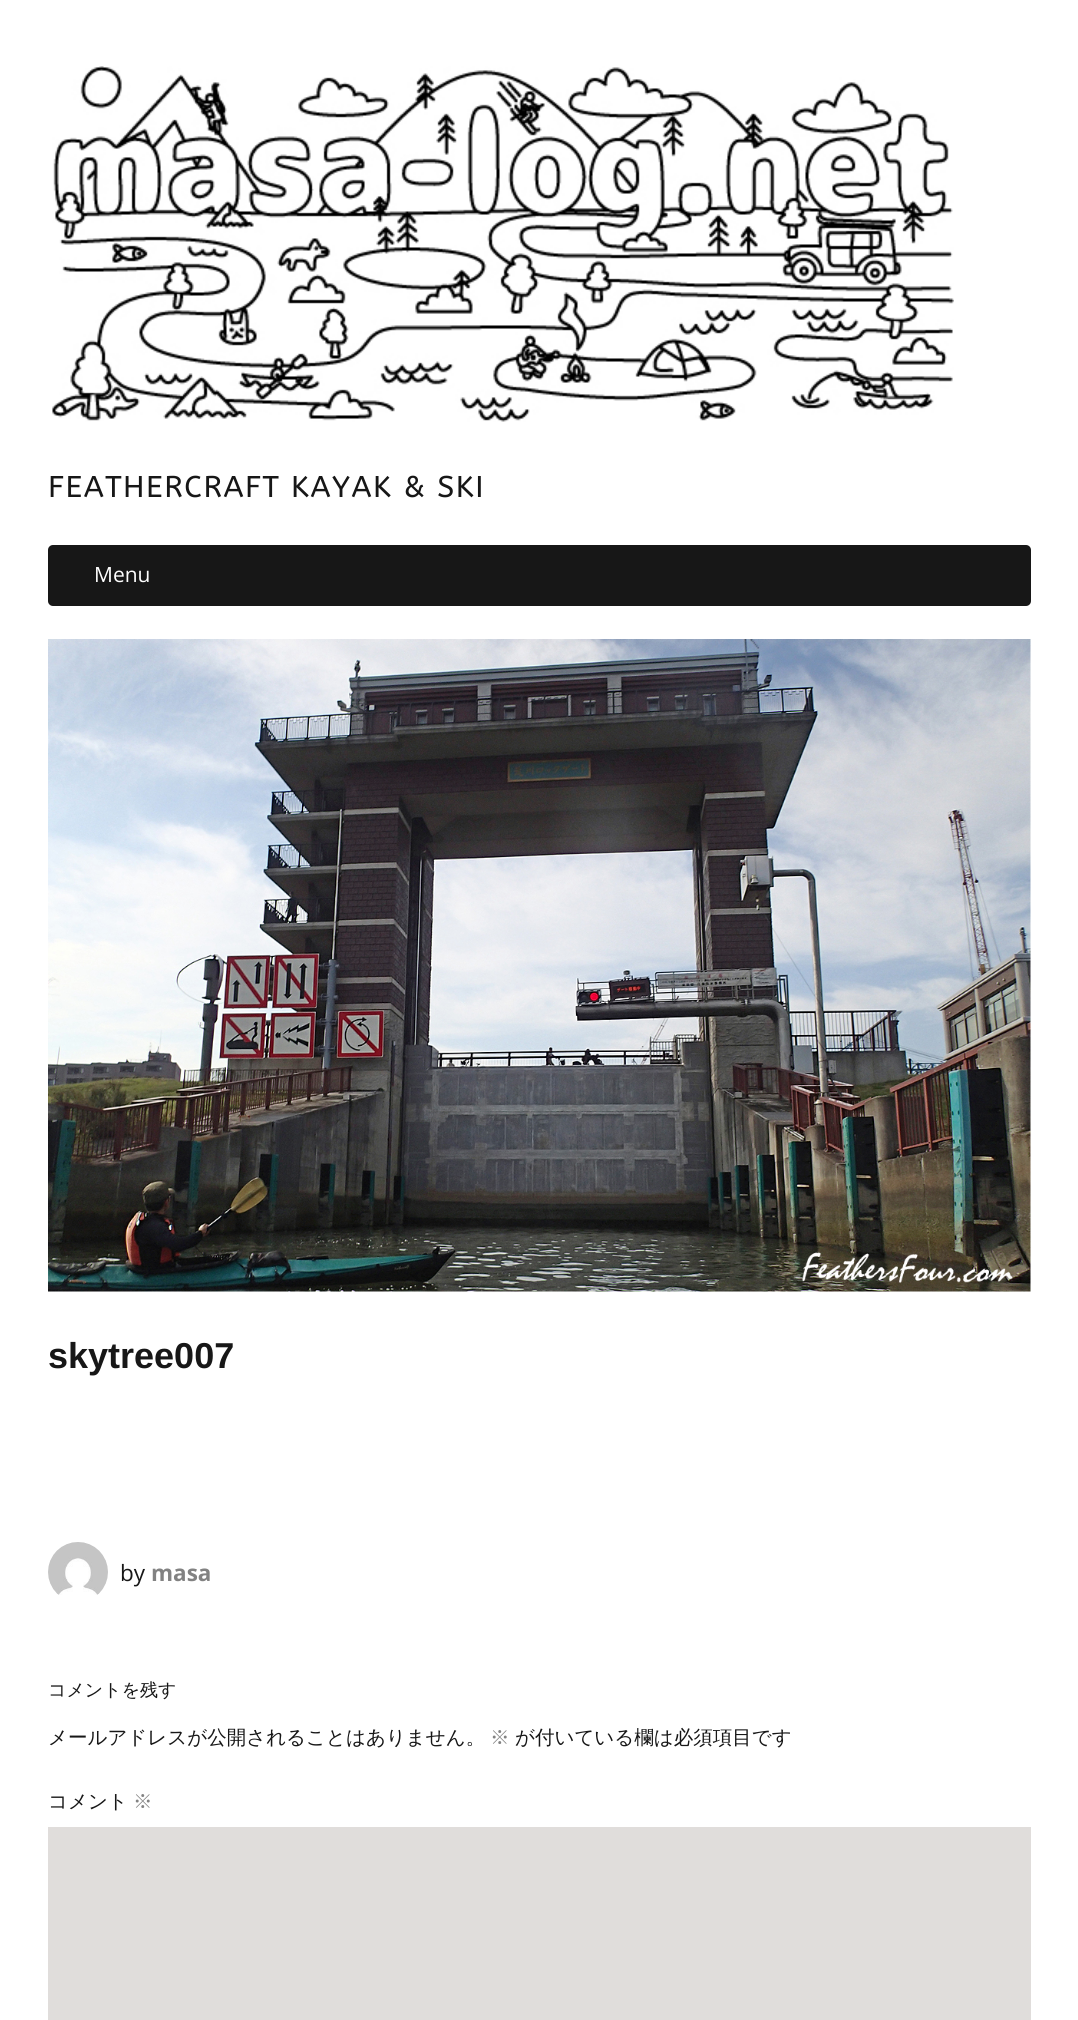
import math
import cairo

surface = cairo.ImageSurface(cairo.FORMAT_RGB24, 1078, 2020)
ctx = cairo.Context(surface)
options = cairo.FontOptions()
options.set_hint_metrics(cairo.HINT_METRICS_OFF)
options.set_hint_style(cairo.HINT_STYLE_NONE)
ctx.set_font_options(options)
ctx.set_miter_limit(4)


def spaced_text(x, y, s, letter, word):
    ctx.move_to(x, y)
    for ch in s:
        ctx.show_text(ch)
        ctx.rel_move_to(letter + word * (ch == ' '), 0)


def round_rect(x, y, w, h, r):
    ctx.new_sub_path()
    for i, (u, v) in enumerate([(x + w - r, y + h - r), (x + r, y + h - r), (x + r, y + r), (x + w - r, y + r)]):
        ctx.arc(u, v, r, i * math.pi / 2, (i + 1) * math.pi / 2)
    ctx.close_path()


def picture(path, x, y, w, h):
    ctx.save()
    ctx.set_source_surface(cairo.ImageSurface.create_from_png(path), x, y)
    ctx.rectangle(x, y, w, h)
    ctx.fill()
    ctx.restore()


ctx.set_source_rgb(1, 1, 1)
ctx.paint()
picture("img1.png", 52, 66, 902, 356)
ctx.select_font_face("ABeeZee")
ctx.set_font_size(30)
ctx.set_source_rgb(0.09, 0.09, 0.09)
spaced_text(48, 497, "FEATHERCRAFT KAYAK & SKI", 1.5, 0)
round_rect(48, 545, 983, 61, 5)
ctx.fill()
ctx.select_font_face("Open Sans")
ctx.set_font_size(21)
ctx.set_source_rgb(1, 1, 1)
ctx.move_to(94, 582)
ctx.show_text("Menu")
picture("img2.png", 48, 639, 983, 653)
ctx.select_font_face("Liberation Sans", cairo.FONT_SLANT_NORMAL, cairo.FONT_WEIGHT_BOLD)
ctx.set_font_size(36)
ctx.set_source_rgb(0.09, 0.09, 0.09)
ctx.move_to(48, 1368)
ctx.show_text("skytree007")
picture("img3.png", 48, 1542, 60, 53)
ctx.select_font_face("Open Sans")
ctx.set_font_size(22.5)
ctx.move_to(120, 1581)
ctx.show_text("by")
ctx.select_font_face("Open Sans", cairo.FONT_SLANT_NORMAL, cairo.FONT_WEIGHT_BOLD)
ctx.set_source_rgb(0.51, 0.51, 0.51)
ctx.move_to(151, 1581)
ctx.show_text("masa")
ctx.select_font_face("WenQuanYi Zen Hei Medium")
ctx.set_font_size(18)
ctx.set_source_rgb(0.09, 0.09, 0.09)
ctx.move_to(48, 1696)
ctx.show_text("コメントを残す")
ctx.set_font_size(19.5)
ctx.move_to(48, 1744)
ctx.show_text("メールアドレスが公開されることはありません。")
ctx.set_source_rgb(0.51, 0.51, 0.51)
ctx.move_to(490, 1744)
ctx.show_text("※")
ctx.set_source_rgb(0.09, 0.09, 0.09)
ctx.move_to(515, 1744)
ctx.show_text("が付いている欄は必須項目です")
ctx.move_to(48, 1808)
ctx.show_text("コメント")
ctx.set_source_rgb(0.51, 0.51, 0.51)
ctx.move_to(133, 1808)
ctx.show_text("※")
ctx.set_source_rgb(0.878, 0.867, 0.859)
ctx.rectangle(48, 1827, 983, 193)
ctx.fill()
surface.write_to_png("page.png")
